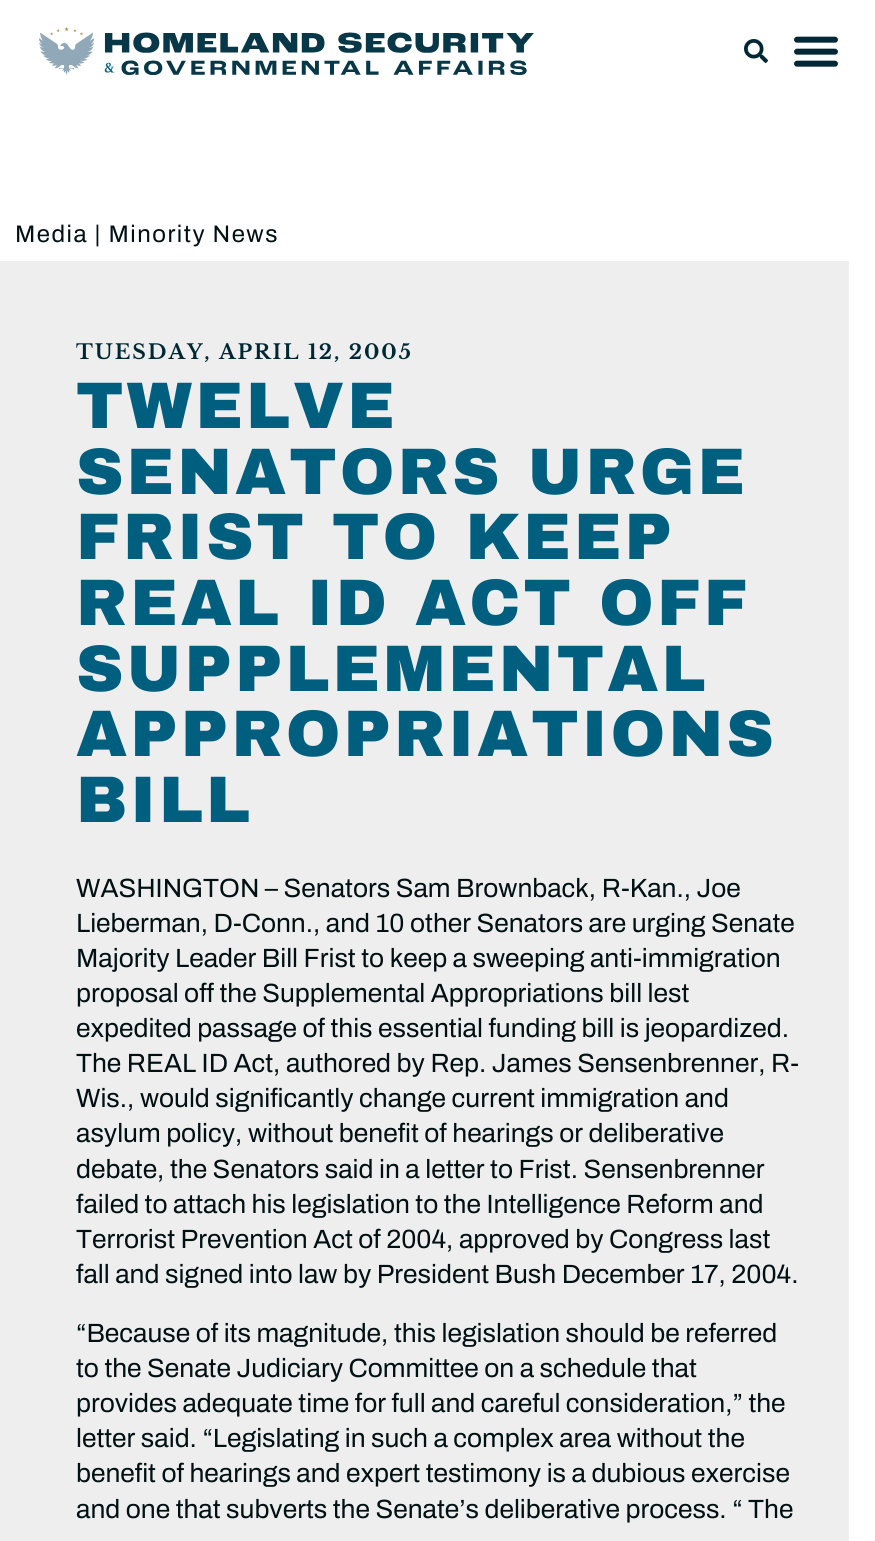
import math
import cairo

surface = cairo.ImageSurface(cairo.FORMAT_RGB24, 875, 1541)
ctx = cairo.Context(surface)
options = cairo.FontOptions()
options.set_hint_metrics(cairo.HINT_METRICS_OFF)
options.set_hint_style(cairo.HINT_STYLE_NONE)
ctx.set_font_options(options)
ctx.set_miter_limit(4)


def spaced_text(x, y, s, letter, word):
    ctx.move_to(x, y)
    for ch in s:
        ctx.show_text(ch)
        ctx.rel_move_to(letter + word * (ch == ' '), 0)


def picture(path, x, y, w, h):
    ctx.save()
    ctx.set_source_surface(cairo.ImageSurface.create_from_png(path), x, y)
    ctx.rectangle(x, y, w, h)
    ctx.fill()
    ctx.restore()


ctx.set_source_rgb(1, 1, 1)
ctx.paint()
picture("img1.png", 39, 27, 495, 48)
picture("img2.png", 744, 39, 24, 24)
picture("img3.png", 794, 36, 44, 31)
ctx.select_font_face("Archivo")
ctx.set_font_size(24)
ctx.set_source_rgb(0, 0.063, 0.078)
spaced_text(15, 242, "Media | Minority News", 1.5, 0)
ctx.set_source_rgb(0.933, 0.933, 0.933)
ctx.rectangle(0, 261, 849, 1280)
ctx.fill()
ctx.select_font_face("Libre Baskerville", cairo.FONT_SLANT_NORMAL, cairo.FONT_WEIGHT_BOLD)
ctx.set_font_size(20.4)
ctx.set_source_rgb(0, 0.157, 0.204)
spaced_text(76, 359, "TUESDAY, APRIL 12, 2005", 1.95, 0)
ctx.select_font_face("Archivo Black Black")
ctx.set_font_size(65.75)
ctx.set_source_rgb(0, 0.373, 0.498)
spaced_text(76, 428, "TWELVE", 3.1, 0)
spaced_text(76, 494, "SENATORS URGE", 3.1, 0)
spaced_text(76, 559, "FRIST TO KEEP", 3.1, 0)
spaced_text(76, 625, "REAL ID ACT OFF", 3.1, 0)
spaced_text(76, 691, "SUPPLEMENTAL", 3.1, 0)
spaced_text(76, 756, "APPROPRIATIONS", 3.1, 0)
spaced_text(76, 822, "BILL", 3.1, 0)
ctx.select_font_face("Archivo")
ctx.set_font_size(26.4)
ctx.set_source_rgb(0, 0.063, 0.078)
ctx.move_to(76, 897)
ctx.show_text("WASHINGTON – Senators Sam Brownback, R-Kan., Joe")
ctx.move_to(76, 932)
ctx.show_text("Lieberman, D-Conn., and 10 other Senators are urging Senate")
ctx.move_to(76, 967)
ctx.show_text("Majority Leader Bill Frist to keep a sweeping anti-immigration")
ctx.move_to(76, 1002)
ctx.show_text("proposal off the Supplemental Appropriations bill lest")
ctx.move_to(76, 1037)
ctx.show_text("expedited passage of this essential funding bill is jeopardized.")
ctx.move_to(76, 1072)
ctx.show_text("The REAL ID Act, authored by Rep. James Sensenbrenner, R-")
ctx.move_to(76, 1107)
ctx.show_text("Wis., would significantly change current immigration and")
ctx.move_to(76, 1142)
ctx.show_text("asylum policy, without benefit of hearings or deliberative")
ctx.move_to(76, 1178)
ctx.show_text("debate, the Senators said in a letter to Frist. Sensenbrenner")
ctx.move_to(76, 1213)
ctx.show_text("failed to attach his legislation to the Intelligence Reform and")
ctx.move_to(76, 1248)
ctx.show_text("Terrorist Prevention Act of 2004, approved by Congress last")
ctx.move_to(76, 1283)
ctx.show_text("fall and signed into law by President Bush December 17, 2004.")
ctx.move_to(76, 1342)
ctx.show_text("“Because of its magnitude, this legislation should be referred")
ctx.move_to(76, 1377)
ctx.show_text("to the Senate Judiciary Committee on a schedule that")
ctx.move_to(76, 1412)
ctx.show_text("provides adequate time for full and careful consideration,” the")
ctx.move_to(76, 1447)
ctx.show_text("letter said. “Legislating in such a complex area without the")
ctx.move_to(76, 1482)
ctx.show_text("benefit of hearings and expert testimony is a dubious exercise")
ctx.move_to(76, 1518)
ctx.show_text("and one that subverts the Senate’s deliberative process. “ The")
surface.write_to_png("page.png")
